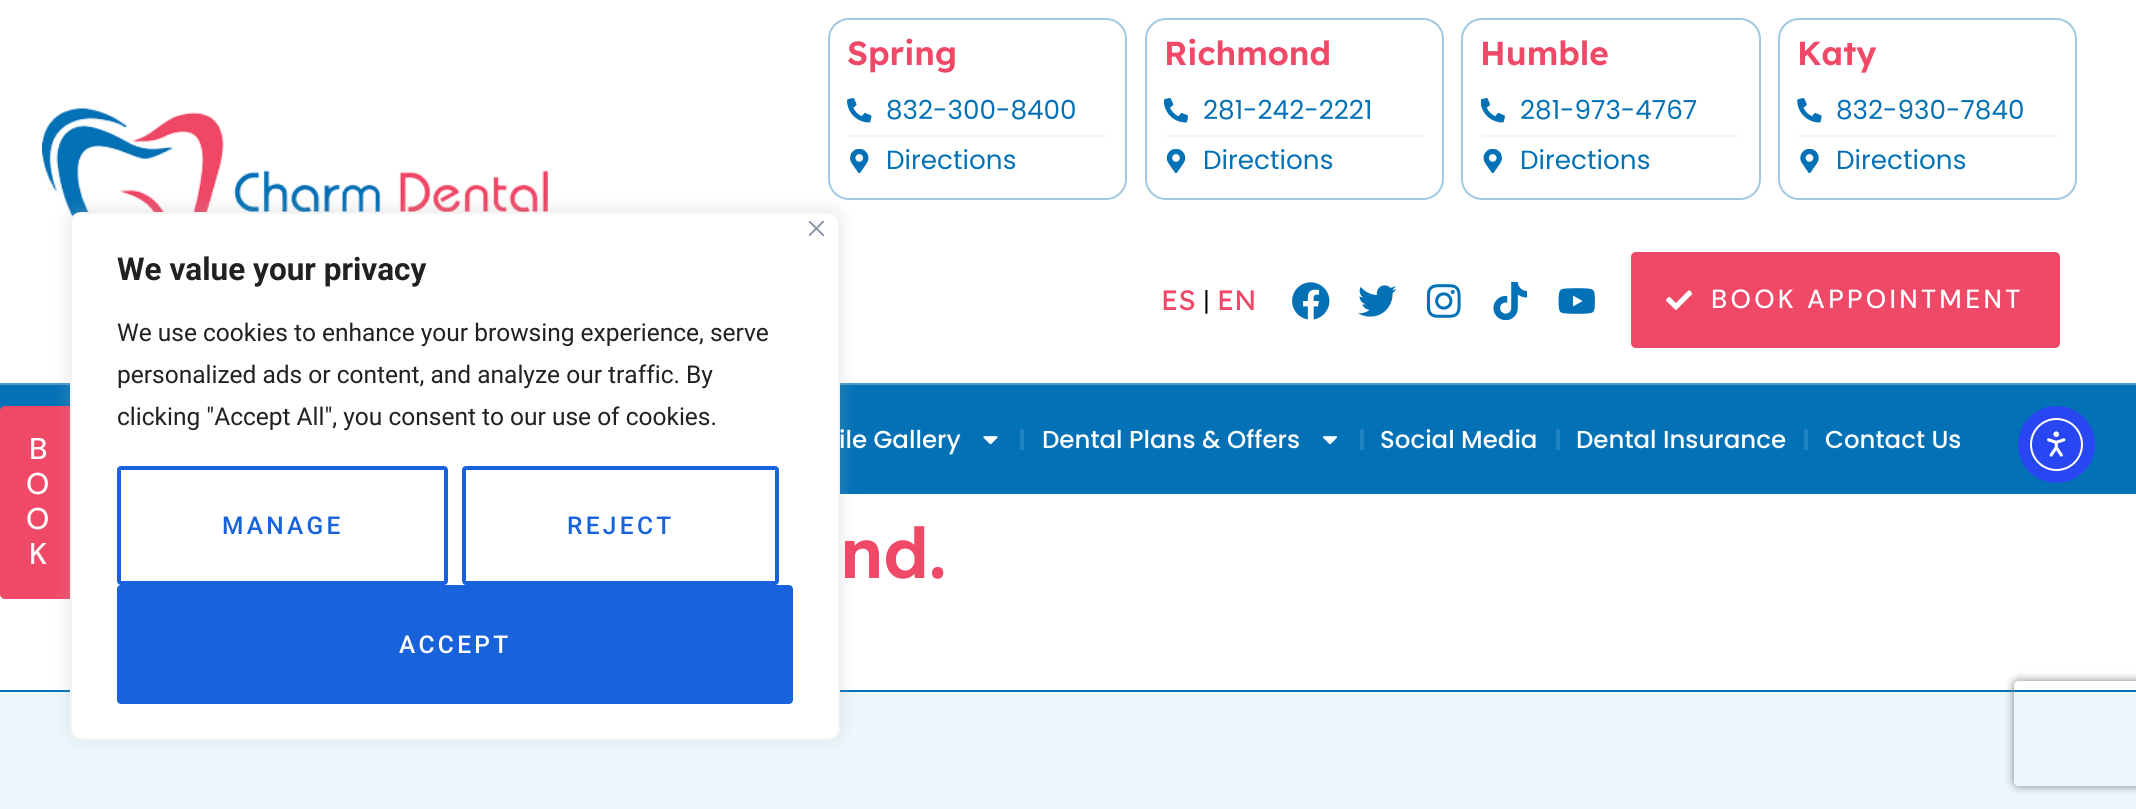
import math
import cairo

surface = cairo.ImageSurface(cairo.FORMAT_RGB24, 2136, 809)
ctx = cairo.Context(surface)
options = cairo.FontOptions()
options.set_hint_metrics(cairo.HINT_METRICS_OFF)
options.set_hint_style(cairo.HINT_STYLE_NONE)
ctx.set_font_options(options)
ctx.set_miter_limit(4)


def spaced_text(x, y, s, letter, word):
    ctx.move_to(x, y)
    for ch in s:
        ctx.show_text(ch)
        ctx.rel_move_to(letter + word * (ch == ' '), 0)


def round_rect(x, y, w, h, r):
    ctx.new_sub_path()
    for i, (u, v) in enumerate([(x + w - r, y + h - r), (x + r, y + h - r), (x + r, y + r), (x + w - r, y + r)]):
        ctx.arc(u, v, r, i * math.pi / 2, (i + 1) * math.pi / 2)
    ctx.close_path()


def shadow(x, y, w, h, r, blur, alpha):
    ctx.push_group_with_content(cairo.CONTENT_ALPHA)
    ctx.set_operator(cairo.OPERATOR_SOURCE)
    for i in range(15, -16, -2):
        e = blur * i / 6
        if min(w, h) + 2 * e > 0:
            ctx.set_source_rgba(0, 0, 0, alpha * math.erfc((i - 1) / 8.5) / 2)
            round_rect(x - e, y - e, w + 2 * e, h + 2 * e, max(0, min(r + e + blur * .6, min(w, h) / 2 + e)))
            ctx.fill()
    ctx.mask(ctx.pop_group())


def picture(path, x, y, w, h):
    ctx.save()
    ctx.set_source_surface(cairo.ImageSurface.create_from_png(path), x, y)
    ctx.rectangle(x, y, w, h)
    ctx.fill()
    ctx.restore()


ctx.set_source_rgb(1, 1, 1)
ctx.paint()
ctx.set_source_rgb(0.012, 0.443, 0.714)
ctx.rectangle(0, 385, 2136, 109)
ctx.fill()
ctx.set_source_rgb(0.941, 0.286, 0.404)
round_rect(0, 406, 79, 193, 5)
ctx.fill()
ctx.select_font_face("DM Sans Medium")
ctx.set_font_size(30)
ctx.set_source_rgb(1, 1, 1)
spaced_text(29, 459, "B", 3.3, 0)
spaced_text(26, 494, "O", 3.3, 0)
spaced_text(26, 529, "O", 3.3, 0)
spaced_text(29, 564, "K", 3.3, 0)
ctx.set_source_rgb(0.925, 0.969, 0.996)
ctx.rectangle(0, 692, 2136, 117)
ctx.fill()
ctx.set_source_rgb(0.012, 0.443, 0.714)
ctx.rectangle(0, 690, 2136, 2)
ctx.fill()
ctx.save()
ctx.set_fill_rule(cairo.FILL_RULE_EVEN_ODD)
ctx.new_path()
ctx.move_to(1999, 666)
ctx.line_to(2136, 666)
ctx.line_to(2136, 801)
ctx.line_to(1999, 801)
ctx.close_path()
ctx.move_to(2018, 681)
ctx.line_to(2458, 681)
ctx.curve_to(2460, 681, 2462, 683, 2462, 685)
ctx.line_to(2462, 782)
ctx.curve_to(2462, 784, 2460, 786, 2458, 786)
ctx.line_to(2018, 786)
ctx.curve_to(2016, 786, 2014, 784, 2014, 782)
ctx.line_to(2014, 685)
ctx.curve_to(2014, 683, 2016, 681, 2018, 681)
ctx.close_path()
ctx.clip()
ctx.set_source_rgb(0.502, 0.502, 0.502)
shadow(2014, 681, 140, 105, 4, 4.5, 1)
ctx.restore()
picture("img2.png", 42, 108, 506, 109)
round_rect(829, 19, 297, 180, 20)
ctx.set_source_rgb(0.624, 0.788, 0.89)
ctx.stroke()
ctx.set_source_rgb(0.29, 0.6, 0.792)
ctx.rectangle(0, 383, 2136, 2)
ctx.fill()
ctx.set_source_rgb(0.675, 0.671, 0.671)
shadow(70, 210, 770, 529, 11, 9, 0.3)
ctx.set_source_rgb(1, 1, 1)
round_rect(71, 213, 768, 526, 10)
ctx.fill_preserve()
ctx.set_source_rgb(0.957, 0.957, 0.957)
ctx.stroke()
picture("img1.png", 809, 221, 15, 15)
ctx.select_font_face("Roboto", cairo.FONT_SLANT_NORMAL, cairo.FONT_WEIGHT_BOLD)
ctx.set_font_size(31.5)
ctx.set_source_rgb(0.129, 0.129, 0.129)
ctx.move_to(117, 280)
ctx.show_text("We value your privacy")
ctx.select_font_face("Roboto")
ctx.set_font_size(24.5)
ctx.move_to(117, 341)
ctx.show_text("We use cookies to enhance your browsing experience, serve")
ctx.move_to(117, 383)
ctx.show_text("personalized ads or content, and analyze our traffic. By")
ctx.move_to(117, 425)
ctx.show_text("clicking \"Accept All\", you consent to our use of cookies.")
round_rect(119, 468, 327, 115, 2)
ctx.set_source_rgb(0.094, 0.388, 0.863)
ctx.set_line_width(4)
ctx.stroke()
ctx.select_font_face("Roboto Medium")
spaced_text(222, 534, "MANAGE", 3.3, 0)
round_rect(464, 468, 313, 115, 2)
ctx.stroke()
spaced_text(567, 534, "REJECT", 3.3, 0)
round_rect(119, 587, 672, 115, 2)
ctx.fill_preserve()
ctx.stroke()
ctx.set_source_rgb(1, 1, 1)
spaced_text(399, 653, "ACCEPT", 3.3, 0)
ctx.select_font_face("Lexend SemiBold")
ctx.set_font_size(33.25)
ctx.set_source_rgb(0.941, 0.286, 0.404)
ctx.move_to(847, 65)
ctx.show_text("Spring")
picture("img3.png", 847, 98, 25, 25)
ctx.select_font_face("Poppins")
ctx.set_font_size(26.25)
ctx.set_source_rgb(0.012, 0.443, 0.714)
ctx.move_to(886, 119)
ctx.show_text("832-300-8400")
ctx.set_source_rgb(0.965, 0.965, 0.965)
ctx.rectangle(847, 135, 261, 2)
ctx.fill()
picture("img4.png", 850, 149, 19, 24)
ctx.set_source_rgb(0.012, 0.443, 0.714)
ctx.move_to(886, 169)
ctx.show_text("Directions")
round_rect(1146, 19, 297, 180, 20)
ctx.set_source_rgb(0.624, 0.788, 0.89)
ctx.set_line_width(2)
ctx.stroke()
ctx.select_font_face("Lexend SemiBold")
ctx.set_font_size(33.25)
ctx.set_source_rgb(0.941, 0.286, 0.404)
ctx.move_to(1164, 65)
ctx.show_text("Richmond")
picture("img5.png", 1164, 98, 24, 25)
ctx.select_font_face("Poppins")
ctx.set_font_size(26.25)
ctx.set_source_rgb(0.012, 0.443, 0.714)
ctx.move_to(1203, 119)
ctx.show_text("281-242-2221")
ctx.set_source_rgb(0.965, 0.965, 0.965)
ctx.rectangle(1164, 135, 261, 2)
ctx.fill()
picture("img6.png", 1166, 149, 20, 24)
ctx.set_source_rgb(0.012, 0.443, 0.714)
ctx.move_to(1203, 169)
ctx.show_text("Directions")
round_rect(1462, 19, 298, 180, 20)
ctx.set_source_rgb(0.624, 0.788, 0.89)
ctx.stroke()
ctx.select_font_face("Lexend SemiBold")
ctx.set_font_size(33.25)
ctx.set_source_rgb(0.941, 0.286, 0.404)
ctx.move_to(1480, 65)
ctx.show_text("Humble")
picture("img7.png", 1481, 98, 24, 25)
ctx.select_font_face("Poppins")
ctx.set_font_size(26.25)
ctx.set_source_rgb(0.012, 0.443, 0.714)
ctx.move_to(1520, 119)
ctx.show_text("281-973-4767")
ctx.set_source_rgb(0.965, 0.965, 0.965)
ctx.rectangle(1481, 135, 260, 2)
ctx.fill()
picture("img8.png", 1483, 149, 19, 24)
ctx.set_source_rgb(0.012, 0.443, 0.714)
ctx.move_to(1520, 169)
ctx.show_text("Directions")
round_rect(1779, 19, 297, 180, 20)
ctx.set_source_rgb(0.624, 0.788, 0.89)
ctx.stroke()
ctx.select_font_face("Lexend SemiBold")
ctx.set_font_size(33.25)
ctx.set_source_rgb(0.941, 0.286, 0.404)
ctx.move_to(1797, 65)
ctx.show_text("Katy")
picture("img9.png", 1797, 98, 25, 25)
ctx.select_font_face("Poppins")
ctx.set_font_size(26.25)
ctx.set_source_rgb(0.012, 0.443, 0.714)
ctx.move_to(1836, 119)
ctx.show_text("832-930-7840")
ctx.set_source_rgb(0.965, 0.965, 0.965)
ctx.rectangle(1797, 135, 261, 2)
ctx.fill()
picture("img10.png", 1800, 149, 19, 24)
ctx.set_source_rgb(0.012, 0.443, 0.714)
ctx.move_to(1836, 169)
ctx.show_text("Directions")
ctx.select_font_face("Lexend")
ctx.set_font_size(28)
ctx.set_source_rgb(0.941, 0.286, 0.404)
ctx.move_to(1161, 310)
ctx.show_text("ES")
ctx.select_font_face("Roboto")
ctx.set_source_rgb(0, 0, 0)
ctx.move_to(1203, 310)
ctx.show_text("|")
ctx.select_font_face("Lexend")
ctx.set_source_rgb(0.941, 0.286, 0.404)
ctx.move_to(1217, 310)
ctx.show_text("EN")
picture("img11.png", 1292, 282, 38, 38)
picture("img12.png", 1358, 285, 39, 32)
picture("img13.png", 1426, 284, 35, 34)
picture("img14.png", 1493, 282, 35, 38)
picture("img15.png", 1558, 288, 37, 26)
round_rect(1631, 252, 429, 96, 5)
ctx.fill()
picture("img16.png", 1666, 290, 26, 20)
ctx.select_font_face("DM Sans Medium")
ctx.set_font_size(26.25)
ctx.set_source_rgb(1, 1, 1)
spaced_text(1711, 308, "BOOK APPOINTMENT", 3.3, 0)
ctx.select_font_face("Poppins Medium")
ctx.set_font_size(24.5)
ctx.move_to(839, 448)
ctx.show_text("ile Gallery")
picture("img17.png", 983, 436, 15, 9)
ctx.set_source_rgb(0.129, 0.51, 0.749)
ctx.rectangle(1020, 429, 4, 21)
ctx.fill()
ctx.set_source_rgb(1, 1, 1)
ctx.move_to(1042, 448)
ctx.show_text("Dental Plans & Offers")
picture("img18.png", 1322, 436, 16, 9)
ctx.set_source_rgb(0.129, 0.51, 0.749)
ctx.rectangle(1360, 429, 4, 21)
ctx.fill()
ctx.set_source_rgb(1, 1, 1)
ctx.move_to(1380, 448)
ctx.show_text("Social Media")
ctx.set_source_rgb(0.129, 0.51, 0.749)
ctx.rectangle(1556, 429, 4, 21)
ctx.fill()
ctx.set_source_rgb(1, 1, 1)
ctx.move_to(1576, 448)
ctx.show_text("Dental Insurance")
ctx.set_source_rgb(0.129, 0.51, 0.749)
ctx.rectangle(1804, 429, 4, 21)
ctx.fill()
ctx.set_source_rgb(1, 1, 1)
ctx.move_to(1825, 448)
ctx.show_text("Contact Us")
ctx.set_source_rgb(0.157, 0.278, 0.953)
ctx.new_path()
ctx.arc(2056.5, 444.5, 38.5, 0, 2 * math.pi)
ctx.fill()
ctx.arc(2056.5, 444.5, 25.5, 0, 2 * math.pi)
ctx.set_source_rgb(1, 1, 1)
ctx.stroke()
picture("img19.png", 2047, 431, 19, 26)
ctx.select_font_face("Lexend SemiBold")
ctx.set_font_size(70)
ctx.set_source_rgb(0.941, 0.286, 0.404)
ctx.move_to(840, 578)
ctx.show_text("nd.")
surface.write_to_png("page.png")
